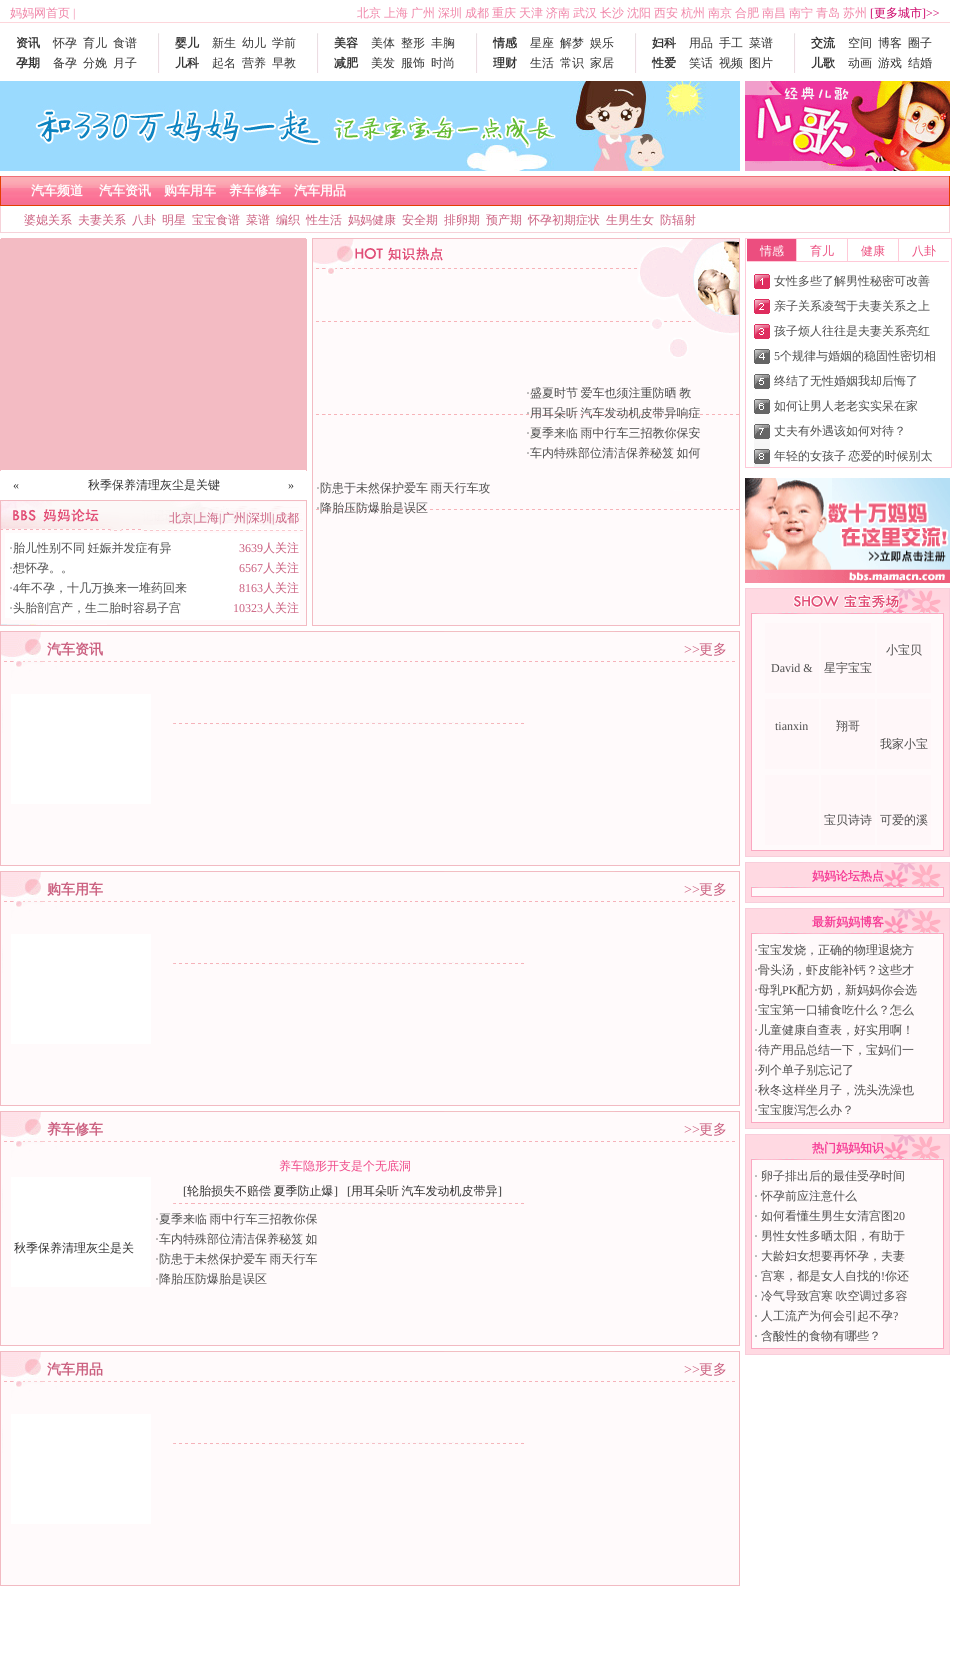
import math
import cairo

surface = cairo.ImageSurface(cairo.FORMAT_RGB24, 953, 1655)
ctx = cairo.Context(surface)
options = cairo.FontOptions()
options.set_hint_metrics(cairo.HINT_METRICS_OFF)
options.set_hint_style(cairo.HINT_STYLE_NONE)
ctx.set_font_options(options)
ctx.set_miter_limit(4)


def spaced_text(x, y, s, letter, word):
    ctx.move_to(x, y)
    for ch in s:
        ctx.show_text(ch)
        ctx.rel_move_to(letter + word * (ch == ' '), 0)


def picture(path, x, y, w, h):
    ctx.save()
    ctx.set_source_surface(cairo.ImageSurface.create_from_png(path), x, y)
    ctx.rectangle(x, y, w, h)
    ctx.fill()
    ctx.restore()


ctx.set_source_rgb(1, 1, 1)
ctx.paint()
ctx.set_source_rgb(0.992, 0.839, 0.859)
ctx.rectangle(0, 22, 950, 1)
ctx.fill()
ctx.select_font_face("WenQuanYi Zen Hei Medium")
ctx.set_font_size(12)
ctx.set_source_rgb(0.941, 0.522, 0.659)
ctx.move_to(10, 17)
ctx.show_text("妈妈网首页")
ctx.select_font_face("Liberation Serif")
ctx.move_to(73, 17)
ctx.show_text("|")
ctx.select_font_face("WenQuanYi Zen Hei Medium")
ctx.move_to(357, 17)
ctx.show_text("北京")
ctx.move_to(384, 17)
ctx.show_text("上海")
ctx.move_to(411, 17)
ctx.show_text("广州")
ctx.move_to(438, 17)
ctx.show_text("深圳")
ctx.move_to(465, 17)
ctx.show_text("成都")
ctx.move_to(492, 17)
ctx.show_text("重庆")
ctx.move_to(519, 17)
ctx.show_text("天津")
ctx.move_to(546, 17)
ctx.show_text("济南")
ctx.move_to(573, 17)
ctx.show_text("武汉")
ctx.move_to(600, 17)
ctx.show_text("长沙")
ctx.move_to(627, 17)
ctx.show_text("沈阳")
ctx.move_to(654, 17)
ctx.show_text("西安")
ctx.move_to(681, 17)
ctx.show_text("杭州")
ctx.move_to(708, 17)
ctx.show_text("南京")
ctx.move_to(735, 17)
ctx.show_text("合肥")
ctx.move_to(762, 17)
ctx.show_text("南昌")
ctx.move_to(789, 17)
ctx.show_text("南宁")
ctx.move_to(816, 17)
ctx.show_text("青岛")
ctx.move_to(843, 17)
ctx.show_text("苏州")
ctx.select_font_face("Liberation Serif")
ctx.set_source_rgb(0.8, 0, 0.4)
ctx.move_to(870, 17)
ctx.show_text("[")
ctx.select_font_face("WenQuanYi Zen Hei Medium")
ctx.move_to(874, 17)
ctx.show_text("更多城市")
ctx.select_font_face("Liberation Serif")
ctx.move_to(922, 17)
ctx.show_text("]>>")
picture("img1.png", 158, 33, 2, 40)
ctx.select_font_face("WenQuanYi Zen Hei", cairo.FONT_SLANT_NORMAL, cairo.FONT_WEIGHT_BOLD)
ctx.set_source_rgb(0.2, 0.2, 0.2)
ctx.move_to(16, 47)
ctx.show_text("资讯")
ctx.select_font_face("WenQuanYi Zen Hei Medium")
ctx.move_to(53, 47)
ctx.show_text("怀孕")
ctx.move_to(83, 47)
ctx.show_text("育儿")
ctx.move_to(113, 47)
ctx.show_text("食谱")
ctx.select_font_face("WenQuanYi Zen Hei", cairo.FONT_SLANT_NORMAL, cairo.FONT_WEIGHT_BOLD)
ctx.move_to(16, 67)
ctx.show_text("孕期")
ctx.select_font_face("WenQuanYi Zen Hei Medium")
ctx.move_to(53, 67)
ctx.show_text("备孕")
ctx.move_to(83, 67)
ctx.show_text("分娩")
ctx.move_to(113, 67)
ctx.show_text("月子")
picture("img1.png", 317, 33, 2, 40)
ctx.select_font_face("WenQuanYi Zen Hei", cairo.FONT_SLANT_NORMAL, cairo.FONT_WEIGHT_BOLD)
ctx.move_to(175, 47)
ctx.show_text("婴儿")
ctx.select_font_face("WenQuanYi Zen Hei Medium")
ctx.move_to(212, 47)
ctx.show_text("新生")
ctx.move_to(242, 47)
ctx.show_text("幼儿")
ctx.move_to(272, 47)
ctx.show_text("学前")
ctx.select_font_face("WenQuanYi Zen Hei", cairo.FONT_SLANT_NORMAL, cairo.FONT_WEIGHT_BOLD)
ctx.move_to(175, 67)
ctx.show_text("儿科")
ctx.select_font_face("WenQuanYi Zen Hei Medium")
ctx.move_to(212, 67)
ctx.show_text("起名")
ctx.move_to(242, 67)
ctx.show_text("营养")
ctx.move_to(272, 67)
ctx.show_text("早教")
picture("img1.png", 476, 33, 2, 40)
ctx.select_font_face("WenQuanYi Zen Hei", cairo.FONT_SLANT_NORMAL, cairo.FONT_WEIGHT_BOLD)
ctx.move_to(334, 47)
ctx.show_text("美容")
ctx.select_font_face("WenQuanYi Zen Hei Medium")
ctx.move_to(371, 47)
ctx.show_text("美体")
ctx.move_to(401, 47)
ctx.show_text("整形")
ctx.move_to(431, 47)
ctx.show_text("丰胸")
ctx.select_font_face("WenQuanYi Zen Hei", cairo.FONT_SLANT_NORMAL, cairo.FONT_WEIGHT_BOLD)
ctx.move_to(334, 67)
ctx.show_text("减肥")
ctx.select_font_face("WenQuanYi Zen Hei Medium")
ctx.move_to(371, 67)
ctx.show_text("美发")
ctx.move_to(401, 67)
ctx.show_text("服饰")
ctx.move_to(431, 67)
ctx.show_text("时尚")
picture("img1.png", 635, 33, 2, 40)
ctx.select_font_face("WenQuanYi Zen Hei", cairo.FONT_SLANT_NORMAL, cairo.FONT_WEIGHT_BOLD)
ctx.move_to(493, 47)
ctx.show_text("情感")
ctx.select_font_face("WenQuanYi Zen Hei Medium")
ctx.move_to(530, 47)
ctx.show_text("星座")
ctx.move_to(560, 47)
ctx.show_text("解梦")
ctx.move_to(590, 47)
ctx.show_text("娱乐")
ctx.select_font_face("WenQuanYi Zen Hei", cairo.FONT_SLANT_NORMAL, cairo.FONT_WEIGHT_BOLD)
ctx.move_to(493, 67)
ctx.show_text("理财")
ctx.select_font_face("WenQuanYi Zen Hei Medium")
ctx.move_to(530, 67)
ctx.show_text("生活")
ctx.move_to(560, 67)
ctx.show_text("常识")
ctx.move_to(590, 67)
ctx.show_text("家居")
picture("img1.png", 794, 33, 2, 40)
ctx.select_font_face("WenQuanYi Zen Hei", cairo.FONT_SLANT_NORMAL, cairo.FONT_WEIGHT_BOLD)
ctx.move_to(652, 47)
ctx.show_text("妇科")
ctx.select_font_face("WenQuanYi Zen Hei Medium")
ctx.move_to(689, 47)
ctx.show_text("用品")
ctx.move_to(719, 47)
ctx.show_text("手工")
ctx.move_to(749, 47)
ctx.show_text("菜谱")
ctx.select_font_face("WenQuanYi Zen Hei", cairo.FONT_SLANT_NORMAL, cairo.FONT_WEIGHT_BOLD)
ctx.move_to(652, 67)
ctx.show_text("性爱")
ctx.select_font_face("WenQuanYi Zen Hei Medium")
ctx.move_to(689, 67)
ctx.show_text("笑话")
ctx.move_to(719, 67)
ctx.show_text("视频")
ctx.move_to(749, 67)
ctx.show_text("图片")
ctx.select_font_face("WenQuanYi Zen Hei", cairo.FONT_SLANT_NORMAL, cairo.FONT_WEIGHT_BOLD)
ctx.move_to(811, 47)
ctx.show_text("交流")
ctx.select_font_face("WenQuanYi Zen Hei Medium")
ctx.move_to(848, 47)
ctx.show_text("空间")
ctx.move_to(878, 47)
ctx.show_text("博客")
ctx.move_to(908, 47)
ctx.show_text("圈子")
ctx.select_font_face("WenQuanYi Zen Hei", cairo.FONT_SLANT_NORMAL, cairo.FONT_WEIGHT_BOLD)
ctx.move_to(811, 67)
ctx.show_text("儿歌")
ctx.select_font_face("WenQuanYi Zen Hei Medium")
ctx.move_to(848, 67)
ctx.show_text("动画")
ctx.move_to(878, 67)
ctx.show_text("游戏")
ctx.move_to(908, 67)
ctx.show_text("结婚")
picture("img2.png", 0, 81, 740, 90)
picture("img3.png", 745, 81, 205, 90)
picture("img4.png", 0, 176, 950, 30)
ctx.set_source_rgb(0.894, 0.243, 0.008)
ctx.rectangle(0, 176, 1, 29)
ctx.fill()
ctx.select_font_face("WenQuanYi Zen Hei", cairo.FONT_SLANT_NORMAL, cairo.FONT_WEIGHT_BOLD)
ctx.set_font_size(13)
ctx.set_source_rgb(1, 1, 1)
ctx.move_to(31, 195)
ctx.show_text("汽车频道")
ctx.move_to(99, 195)
ctx.show_text("汽车资讯")
ctx.move_to(164, 195)
ctx.show_text("购车用车")
ctx.move_to(229, 195)
ctx.show_text("养车修车")
ctx.move_to(294, 195)
ctx.show_text("汽车用品")
ctx.set_source_rgb(0.894, 0.243, 0.008)
ctx.rectangle(949, 176, 1, 29)
ctx.fill()
ctx.set_source_rgb(0.961, 0.824, 0.851)
ctx.rectangle(0, 232, 950, 1)
ctx.fill()
ctx.rectangle(0, 206, 1, 26)
ctx.fill()
ctx.select_font_face("WenQuanYi Zen Hei Medium")
ctx.set_font_size(12)
ctx.set_source_rgb(0.796, 0.376, 0.502)
ctx.move_to(24, 224)
ctx.show_text("婆媳关系")
ctx.move_to(78, 224)
ctx.show_text("夫妻关系")
ctx.move_to(132, 224)
ctx.show_text("八卦")
ctx.move_to(162, 224)
ctx.show_text("明星")
ctx.move_to(192, 224)
ctx.show_text("宝宝食谱")
ctx.move_to(246, 224)
ctx.show_text("菜谱")
ctx.move_to(276, 224)
ctx.show_text("编织")
ctx.move_to(306, 224)
ctx.show_text("性生活")
ctx.move_to(348, 224)
ctx.show_text("妈妈健康")
ctx.move_to(402, 224)
ctx.show_text("安全期")
ctx.move_to(444, 224)
ctx.show_text("排卵期")
ctx.move_to(486, 224)
ctx.show_text("预产期")
ctx.move_to(528, 224)
ctx.show_text("怀孕初期症状")
ctx.move_to(606, 224)
ctx.show_text("生男生女")
ctx.move_to(660, 224)
ctx.show_text("防辐射")
ctx.set_source_rgb(0.961, 0.824, 0.851)
ctx.rectangle(949, 206, 1, 26)
ctx.fill()
picture("img5.png", 312, 238, 428, 388)
ctx.select_font_face("Liberation Serif")
ctx.set_source_rgb(0.302, 0.302, 0.302)
ctx.move_to(526, 397)
ctx.show_text("·")
ctx.select_font_face("WenQuanYi Zen Hei Medium")
spaced_text(530, 397, "盛夏时节 爱车也须注重防晒 教", 0, -1)
ctx.select_font_face("Liberation Serif")
ctx.move_to(526, 417)
ctx.show_text("·")
ctx.select_font_face("WenQuanYi Zen Hei Medium")
spaced_text(530, 417, "用耳朵听 汽车发动机皮带异响症", 0, -1)
ctx.select_font_face("Liberation Serif")
ctx.move_to(526, 437)
ctx.show_text("·")
ctx.select_font_face("WenQuanYi Zen Hei Medium")
spaced_text(530, 437, "夏季来临 雨中行车三招教你保安", 0, -1)
ctx.select_font_face("Liberation Serif")
ctx.move_to(526, 457)
ctx.show_text("·")
ctx.select_font_face("WenQuanYi Zen Hei Medium")
spaced_text(530, 457, "车内特殊部位清洁保养秘笈 如何", 0, -1)
ctx.select_font_face("Liberation Serif")
ctx.move_to(316, 492)
ctx.show_text("·")
ctx.select_font_face("WenQuanYi Zen Hei Medium")
spaced_text(320, 492, "防患于未然保护爱车 雨天行车攻", 0, -1)
ctx.select_font_face("Liberation Serif")
ctx.move_to(316, 512)
ctx.show_text("·")
ctx.select_font_face("WenQuanYi Zen Hei Medium")
ctx.move_to(320, 512)
ctx.show_text("降胎压防爆胎是误区")
ctx.set_source_rgb(0.953, 0.733, 0.765)
ctx.rectangle(0, 239, 1, 232)
ctx.fill()
ctx.rectangle(306, 239, 1, 232)
ctx.fill()
ctx.rectangle(1, 238, 305, 232)
ctx.fill()
ctx.select_font_face("Liberation Serif")
ctx.set_source_rgb(0.2, 0.2, 0.2)
ctx.move_to(13, 489)
ctx.show_text("«")
ctx.select_font_face("WenQuanYi Zen Hei Medium")
ctx.move_to(88, 489)
ctx.show_text("秋季保养清理灰尘是关键")
ctx.select_font_face("Liberation Serif")
ctx.move_to(288, 489)
ctx.show_text("»")
picture("img6.png", 0, 500, 307, 126)
ctx.select_font_face("WenQuanYi Zen Hei Medium")
ctx.set_source_rgb(0.796, 0.376, 0.502)
ctx.move_to(169, 522)
ctx.show_text("北京")
ctx.select_font_face("Liberation Serif")
ctx.move_to(193, 522)
ctx.show_text("|")
ctx.select_font_face("WenQuanYi Zen Hei Medium")
ctx.move_to(195, 522)
ctx.show_text("上海")
ctx.select_font_face("Liberation Serif")
ctx.move_to(219, 522)
ctx.show_text("|")
ctx.select_font_face("WenQuanYi Zen Hei Medium")
ctx.move_to(222, 522)
ctx.show_text("广州")
ctx.select_font_face("Liberation Serif")
ctx.move_to(246, 522)
ctx.show_text("|")
ctx.select_font_face("WenQuanYi Zen Hei Medium")
ctx.move_to(248, 522)
ctx.show_text("深圳")
ctx.select_font_face("Liberation Serif")
ctx.move_to(272, 522)
ctx.show_text("|")
ctx.select_font_face("WenQuanYi Zen Hei Medium")
ctx.move_to(275, 522)
ctx.show_text("成都")
ctx.select_font_face("Liberation Serif")
ctx.set_source_rgb(0.302, 0.302, 0.302)
ctx.move_to(9, 552)
ctx.show_text("·")
ctx.select_font_face("WenQuanYi Zen Hei Medium")
spaced_text(13, 552, "胎儿性别不同 妊娠并发症有异", 0, -1)
ctx.select_font_face("Liberation Serif")
ctx.set_source_rgb(0.796, 0.376, 0.502)
ctx.move_to(239, 552)
ctx.show_text("3639")
ctx.select_font_face("WenQuanYi Zen Hei Medium")
ctx.move_to(263, 552)
ctx.show_text("人关注")
ctx.select_font_face("Liberation Serif")
ctx.set_source_rgb(0.302, 0.302, 0.302)
ctx.move_to(9, 572)
ctx.show_text("·")
ctx.select_font_face("WenQuanYi Zen Hei Medium")
ctx.move_to(13, 572)
ctx.show_text("想怀孕。。")
ctx.select_font_face("Liberation Serif")
ctx.set_source_rgb(0.796, 0.376, 0.502)
ctx.move_to(239, 572)
ctx.show_text("6567")
ctx.select_font_face("WenQuanYi Zen Hei Medium")
ctx.move_to(263, 572)
ctx.show_text("人关注")
ctx.select_font_face("Liberation Serif")
ctx.set_source_rgb(0.302, 0.302, 0.302)
ctx.move_to(9, 592)
ctx.show_text("·4")
ctx.select_font_face("WenQuanYi Zen Hei Medium")
ctx.move_to(19, 592)
ctx.show_text("年不孕，十几万换来一堆药回来")
ctx.select_font_face("Liberation Serif")
ctx.set_source_rgb(0.796, 0.376, 0.502)
ctx.move_to(239, 592)
ctx.show_text("8163")
ctx.select_font_face("WenQuanYi Zen Hei Medium")
ctx.move_to(263, 592)
ctx.show_text("人关注")
ctx.select_font_face("Liberation Serif")
ctx.set_source_rgb(0.302, 0.302, 0.302)
ctx.move_to(9, 612)
ctx.show_text("·")
ctx.select_font_face("WenQuanYi Zen Hei Medium")
ctx.move_to(13, 612)
ctx.show_text("头胎剖宫产，生二胎时容易子宫")
ctx.select_font_face("Liberation Serif")
ctx.set_source_rgb(0.796, 0.376, 0.502)
ctx.move_to(233, 612)
ctx.show_text("10323")
ctx.select_font_face("WenQuanYi Zen Hei Medium")
ctx.move_to(263, 612)
ctx.show_text("人关注")
picture("img7.png", 0, 631, 740, 235)
ctx.select_font_face("WenQuanYi Zen Hei", cairo.FONT_SLANT_NORMAL, cairo.FONT_WEIGHT_BOLD)
ctx.set_font_size(14)
ctx.move_to(47, 654)
ctx.show_text("汽车资讯")
ctx.select_font_face("Liberation Serif")
ctx.move_to(684, 654)
ctx.show_text(">>")
ctx.select_font_face("WenQuanYi Zen Hei Medium")
ctx.move_to(699, 654)
ctx.show_text("更多")
ctx.set_source_rgb(1, 1, 1)
ctx.rectangle(11, 694, 140, 110)
ctx.fill()
picture("img7.png", 0, 871, 740, 235)
ctx.select_font_face("WenQuanYi Zen Hei", cairo.FONT_SLANT_NORMAL, cairo.FONT_WEIGHT_BOLD)
ctx.set_source_rgb(0.796, 0.376, 0.502)
ctx.move_to(47, 894)
ctx.show_text("购车用车")
ctx.select_font_face("Liberation Serif")
ctx.move_to(684, 894)
ctx.show_text(">>")
ctx.select_font_face("WenQuanYi Zen Hei Medium")
ctx.move_to(699, 894)
ctx.show_text("更多")
ctx.set_source_rgb(1, 1, 1)
ctx.rectangle(11, 934, 140, 110)
ctx.fill()
picture("img7.png", 0, 1111, 740, 235)
ctx.select_font_face("WenQuanYi Zen Hei", cairo.FONT_SLANT_NORMAL, cairo.FONT_WEIGHT_BOLD)
ctx.set_source_rgb(0.796, 0.376, 0.502)
ctx.move_to(47, 1134)
ctx.show_text("养车修车")
ctx.select_font_face("Liberation Serif")
ctx.move_to(684, 1134)
ctx.show_text(">>")
ctx.select_font_face("WenQuanYi Zen Hei Medium")
ctx.move_to(699, 1134)
ctx.show_text("更多")
ctx.set_font_size(12)
ctx.set_source_rgb(0.937, 0.282, 0.533)
ctx.move_to(279, 1170)
ctx.show_text("养车隐形开支是个无底洞")
ctx.select_font_face("Liberation Serif")
ctx.set_source_rgb(0.2, 0.2, 0.2)
ctx.move_to(183, 1195)
ctx.show_text("[")
ctx.select_font_face("WenQuanYi Zen Hei Medium")
spaced_text(187, 1195, "轮胎损失不赔偿 夏季防止爆", 0, -1)
ctx.select_font_face("Liberation Serif")
ctx.move_to(334, 1195)
ctx.show_text("]   [")
ctx.select_font_face("WenQuanYi Zen Hei Medium")
spaced_text(351, 1195, "用耳朵听 汽车发动机皮带异", 0, -1)
ctx.select_font_face("Liberation Serif")
ctx.move_to(498, 1195)
ctx.show_text("]")
ctx.set_source_rgb(1, 1, 1)
ctx.rectangle(11, 1177, 140, 110)
ctx.fill()
ctx.select_font_face("WenQuanYi Zen Hei Medium")
ctx.set_source_rgb(0.2, 0.2, 0.2)
ctx.move_to(14, 1252)
ctx.show_text("秋季保养清理灰尘是关")
ctx.select_font_face("Liberation Serif")
ctx.set_source_rgb(0.302, 0.302, 0.302)
ctx.move_to(155, 1223)
ctx.show_text("·")
ctx.select_font_face("WenQuanYi Zen Hei Medium")
spaced_text(159, 1223, "夏季来临 雨中行车三招教你保", 0, -1)
ctx.select_font_face("Liberation Serif")
ctx.move_to(155, 1243)
ctx.show_text("·")
ctx.select_font_face("WenQuanYi Zen Hei Medium")
spaced_text(159, 1243, "车内特殊部位清洁保养秘笈 如", 0, -1)
ctx.select_font_face("Liberation Serif")
ctx.move_to(155, 1263)
ctx.show_text("·")
ctx.select_font_face("WenQuanYi Zen Hei Medium")
spaced_text(159, 1263, "防患于未然保护爱车 雨天行车", 0, -1)
ctx.select_font_face("Liberation Serif")
ctx.move_to(155, 1283)
ctx.show_text("·")
ctx.select_font_face("WenQuanYi Zen Hei Medium")
ctx.move_to(159, 1283)
ctx.show_text("降胎压防爆胎是误区")
picture("img7.png", 0, 1351, 740, 235)
ctx.select_font_face("WenQuanYi Zen Hei", cairo.FONT_SLANT_NORMAL, cairo.FONT_WEIGHT_BOLD)
ctx.set_font_size(14)
ctx.set_source_rgb(0.796, 0.376, 0.502)
ctx.move_to(47, 1374)
ctx.show_text("汽车用品")
ctx.select_font_face("Liberation Serif")
ctx.move_to(684, 1374)
ctx.show_text(">>")
ctx.select_font_face("WenQuanYi Zen Hei Medium")
ctx.move_to(699, 1374)
ctx.show_text("更多")
ctx.set_source_rgb(1, 1, 1)
ctx.rectangle(11, 1414, 140, 110)
ctx.fill()
ctx.rectangle(745.5, 238.5, 206, 229)
ctx.set_source_rgb(1, 0.788, 0.847)
ctx.set_line_width(1)
ctx.stroke()
ctx.set_source_rgb(0.925, 0.306, 0.498)
ctx.rectangle(747, 239, 49, 22)
ctx.fill()
ctx.set_source_rgb(1, 0.788, 0.847)
ctx.rectangle(796, 239, 1, 23)
ctx.fill()
ctx.rectangle(747, 261, 50, 1)
ctx.fill()
ctx.set_font_size(12)
ctx.set_source_rgb(1, 1, 1)
ctx.move_to(760, 255)
ctx.show_text("情感")
ctx.set_source_rgb(1, 0.788, 0.847)
ctx.rectangle(847, 239, 1, 23)
ctx.fill()
ctx.rectangle(797, 261, 51, 1)
ctx.fill()
ctx.set_source_rgb(0.925, 0.306, 0.498)
ctx.move_to(810, 255)
ctx.show_text("育儿")
ctx.set_source_rgb(1, 0.788, 0.847)
ctx.rectangle(898, 239, 1, 23)
ctx.fill()
ctx.rectangle(848, 261, 101, 1)
ctx.fill()
ctx.set_source_rgb(0.925, 0.306, 0.498)
ctx.move_to(861, 255)
ctx.show_text("健康")
ctx.move_to(912, 255)
ctx.show_text("八卦")
picture("img8.png", 754, 274, 16, 193)
ctx.set_source_rgb(0.302, 0.302, 0.302)
ctx.move_to(774, 285)
ctx.show_text("女性多些了解男性秘密可改善")
ctx.move_to(774, 310)
ctx.show_text("亲子关系凌驾于夫妻关系之上")
ctx.move_to(774, 335)
ctx.show_text("孩子烦人往往是夫妻关系亮红")
ctx.select_font_face("Liberation Serif")
ctx.move_to(774, 360)
ctx.show_text("5")
ctx.select_font_face("WenQuanYi Zen Hei Medium")
ctx.move_to(780, 360)
ctx.show_text("个规律与婚姻的稳固性密切相")
ctx.move_to(774, 385)
ctx.show_text("终结了无性婚姻我却后悔了")
ctx.move_to(774, 410)
ctx.show_text("如何让男人老老实实呆在家")
ctx.move_to(774, 435)
ctx.show_text("丈夫有外遇该如何对待？")
spaced_text(774, 460, "年轻的女孩子 恋爱的时候别太", 0, -1)
picture("img9.png", 745, 478, 205, 105)
picture("img10.png", 745, 588, 205, 32)
picture("img11.png", 745, 620, 205, 228)
ctx.set_source_rgb(1, 0.965, 0.973)
ctx.rectangle(877, 623, 54, 70)
ctx.fill()
ctx.set_source_rgb(0.302, 0.302, 0.302)
ctx.move_to(886, 654)
ctx.show_text("小宝贝")
ctx.set_source_rgb(1, 0.965, 0.973)
ctx.rectangle(765, 623, 54, 70)
ctx.fill()
ctx.select_font_face("Liberation Serif")
ctx.set_source_rgb(0.302, 0.302, 0.302)
ctx.move_to(771, 672)
ctx.show_text("David &")
ctx.set_source_rgb(1, 0.965, 0.973)
ctx.rectangle(821, 623, 54, 70)
ctx.fill()
ctx.select_font_face("WenQuanYi Zen Hei Medium")
ctx.set_source_rgb(0.302, 0.302, 0.302)
ctx.move_to(824, 672)
ctx.show_text("星宇宝宝")
ctx.set_source_rgb(1, 0.965, 0.973)
ctx.rectangle(765, 699, 54, 70)
ctx.fill()
ctx.select_font_face("Liberation Serif")
ctx.set_source_rgb(0.302, 0.302, 0.302)
ctx.move_to(775, 730)
ctx.show_text("tianxin")
ctx.set_source_rgb(1, 0.965, 0.973)
ctx.rectangle(821, 699, 54, 70)
ctx.fill()
ctx.select_font_face("WenQuanYi Zen Hei Medium")
ctx.set_source_rgb(0.302, 0.302, 0.302)
ctx.move_to(836, 730)
ctx.show_text("翔哥")
ctx.set_source_rgb(1, 0.965, 0.973)
ctx.rectangle(877, 699, 54, 70)
ctx.fill()
ctx.set_source_rgb(0.302, 0.302, 0.302)
ctx.move_to(880, 748)
ctx.show_text("我家小宝")
ctx.set_source_rgb(1, 0.965, 0.973)
ctx.rectangle(765, 775, 54, 70)
ctx.fill()
ctx.rectangle(821, 775, 54, 70)
ctx.fill()
ctx.set_source_rgb(0.302, 0.302, 0.302)
ctx.move_to(824, 824)
ctx.show_text("宝贝诗诗")
ctx.set_source_rgb(1, 0.965, 0.973)
ctx.rectangle(877, 775, 54, 70)
ctx.fill()
ctx.set_source_rgb(0.302, 0.302, 0.302)
ctx.move_to(880, 824)
ctx.show_text("可爱的溪")
picture("img12.png", 745, 848, 205, 9)
picture("img13.png", 745, 862, 205, 32)
ctx.select_font_face("WenQuanYi Zen Hei", cairo.FONT_SLANT_NORMAL, cairo.FONT_WEIGHT_BOLD)
ctx.set_source_rgb(0.961, 0.239, 0.588)
ctx.move_to(812, 880)
ctx.show_text("妈妈论坛热点")
picture("img12.png", 745, 894, 205, 9)
picture("img13.png", 745, 908, 205, 32)
ctx.move_to(812, 926)
ctx.show_text("最新妈妈博客")
picture("img14.png", 745, 940, 205, 180)
ctx.select_font_face("Liberation Serif")
ctx.set_source_rgb(0.302, 0.302, 0.302)
ctx.move_to(754, 954)
ctx.show_text("·")
ctx.select_font_face("WenQuanYi Zen Hei Medium")
ctx.move_to(758, 954)
ctx.show_text("宝宝发烧，正确的物理退烧方")
ctx.select_font_face("Liberation Serif")
ctx.move_to(754, 974)
ctx.show_text("·")
ctx.select_font_face("WenQuanYi Zen Hei Medium")
ctx.move_to(758, 974)
ctx.show_text("骨头汤，虾皮能补钙？这些才")
ctx.select_font_face("Liberation Serif")
ctx.move_to(754, 994)
ctx.show_text("·")
ctx.select_font_face("WenQuanYi Zen Hei Medium")
ctx.move_to(758, 994)
ctx.show_text("母乳")
ctx.select_font_face("Liberation Serif")
ctx.move_to(782, 994)
ctx.show_text("PK")
ctx.select_font_face("WenQuanYi Zen Hei Medium")
ctx.move_to(797, 994)
ctx.show_text("配方奶，新妈妈你会选")
ctx.select_font_face("Liberation Serif")
ctx.move_to(754, 1014)
ctx.show_text("·")
ctx.select_font_face("WenQuanYi Zen Hei Medium")
ctx.move_to(758, 1014)
ctx.show_text("宝宝第一口辅食吃什么？怎么")
ctx.select_font_face("Liberation Serif")
ctx.move_to(754, 1034)
ctx.show_text("·")
ctx.select_font_face("WenQuanYi Zen Hei Medium")
ctx.move_to(758, 1034)
ctx.show_text("儿童健康自查表，好实用啊！")
ctx.select_font_face("Liberation Serif")
ctx.move_to(754, 1054)
ctx.show_text("·")
ctx.select_font_face("WenQuanYi Zen Hei Medium")
ctx.move_to(758, 1054)
ctx.show_text("待产用品总结一下，宝妈们一")
ctx.select_font_face("Liberation Serif")
ctx.move_to(754, 1074)
ctx.show_text("·")
ctx.select_font_face("WenQuanYi Zen Hei Medium")
ctx.move_to(758, 1074)
ctx.show_text("列个单子别忘记了")
ctx.select_font_face("Liberation Serif")
ctx.move_to(754, 1094)
ctx.show_text("·")
ctx.select_font_face("WenQuanYi Zen Hei Medium")
ctx.move_to(758, 1094)
ctx.show_text("秋冬这样坐月子，洗头洗澡也")
ctx.select_font_face("Liberation Serif")
ctx.move_to(754, 1114)
ctx.show_text("·")
ctx.select_font_face("WenQuanYi Zen Hei Medium")
ctx.move_to(758, 1114)
ctx.show_text("宝宝腹泻怎么办？")
picture("img12.png", 745, 1120, 205, 9)
picture("img13.png", 745, 1134, 205, 32)
ctx.select_font_face("WenQuanYi Zen Hei", cairo.FONT_SLANT_NORMAL, cairo.FONT_WEIGHT_BOLD)
ctx.set_source_rgb(0.961, 0.239, 0.588)
ctx.move_to(812, 1152)
ctx.show_text("热门妈妈知识")
picture("img14.png", 745, 1166, 205, 180)
ctx.select_font_face("Liberation Serif")
ctx.set_source_rgb(0.302, 0.302, 0.302)
ctx.move_to(754, 1180)
ctx.show_text("·")
ctx.select_font_face("WenQuanYi Zen Hei Medium")
ctx.move_to(761, 1180)
ctx.show_text("卵子排出后的最佳受孕时间")
ctx.select_font_face("Liberation Serif")
ctx.move_to(754, 1200)
ctx.show_text("·")
ctx.select_font_face("WenQuanYi Zen Hei Medium")
ctx.move_to(761, 1200)
ctx.show_text("怀孕前应注意什么")
ctx.select_font_face("Liberation Serif")
ctx.move_to(754, 1220)
ctx.show_text("·")
ctx.select_font_face("WenQuanYi Zen Hei Medium")
ctx.move_to(761, 1220)
ctx.show_text("如何看懂生男生女清宫图")
ctx.select_font_face("Liberation Serif")
ctx.move_to(893, 1220)
ctx.show_text("20")
ctx.move_to(754, 1240)
ctx.show_text("·")
ctx.select_font_face("WenQuanYi Zen Hei Medium")
ctx.move_to(761, 1240)
ctx.show_text("男性女性多晒太阳，有助于")
ctx.select_font_face("Liberation Serif")
ctx.move_to(754, 1260)
ctx.show_text("·")
ctx.select_font_face("WenQuanYi Zen Hei Medium")
ctx.move_to(761, 1260)
ctx.show_text("大龄妇女想要再怀孕，夫妻")
ctx.select_font_face("Liberation Serif")
ctx.move_to(754, 1280)
ctx.show_text("·")
ctx.select_font_face("WenQuanYi Zen Hei Medium")
ctx.move_to(761, 1280)
ctx.show_text("宫寒，都是女人自找的")
ctx.select_font_face("Liberation Serif")
ctx.move_to(881, 1280)
ctx.show_text("!")
ctx.select_font_face("WenQuanYi Zen Hei Medium")
ctx.move_to(885, 1280)
ctx.show_text("你还")
ctx.select_font_face("Liberation Serif")
ctx.move_to(754, 1300)
ctx.show_text("·")
ctx.select_font_face("WenQuanYi Zen Hei Medium")
spaced_text(761, 1300, "冷气导致宫寒 吹空调过多容", 0, -1)
ctx.select_font_face("Liberation Serif")
ctx.move_to(754, 1320)
ctx.show_text("·")
ctx.select_font_face("WenQuanYi Zen Hei Medium")
ctx.move_to(761, 1320)
ctx.show_text("人工流产为何会引起不孕")
ctx.select_font_face("Liberation Serif")
ctx.move_to(893, 1320)
ctx.show_text("?")
ctx.move_to(754, 1340)
ctx.show_text("·")
ctx.select_font_face("WenQuanYi Zen Hei Medium")
ctx.move_to(761, 1340)
ctx.show_text("含酸性的食物有哪些？")
picture("img12.png", 745, 1346, 205, 9)
surface.write_to_png("page.png")
